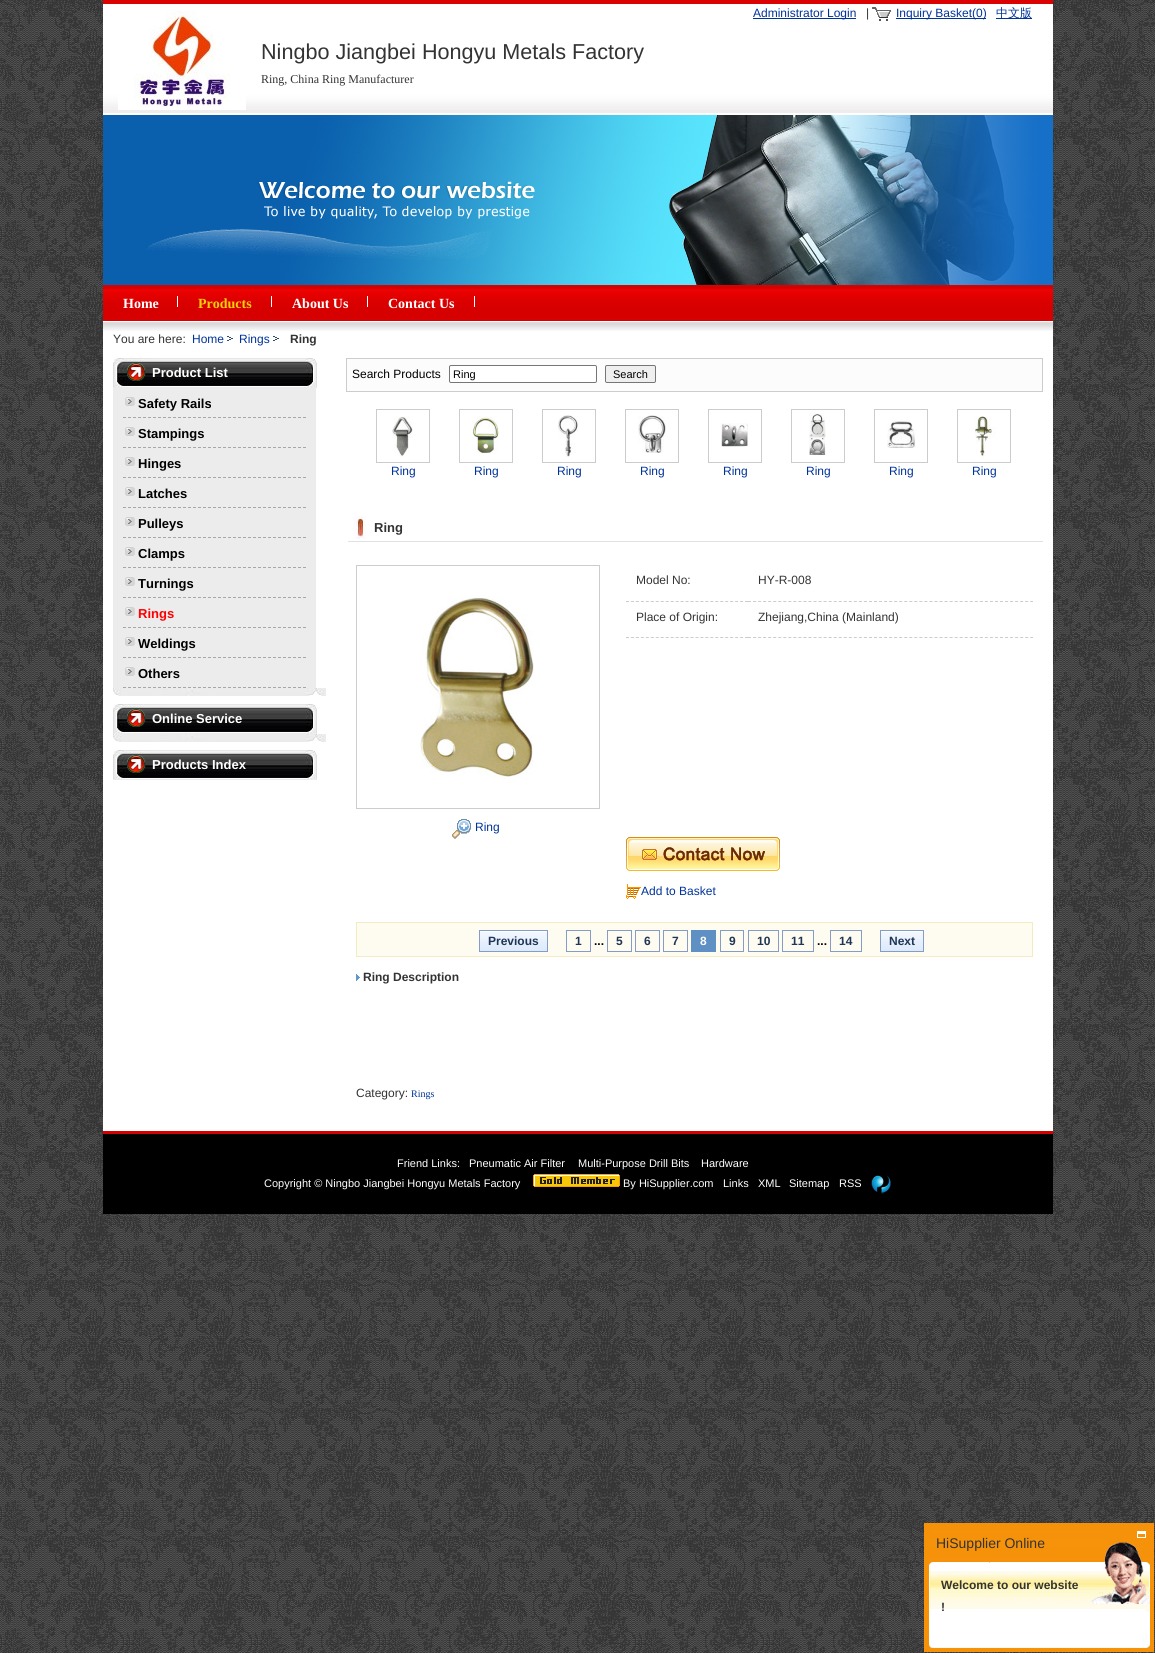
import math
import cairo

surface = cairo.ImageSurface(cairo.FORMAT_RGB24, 1155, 1653)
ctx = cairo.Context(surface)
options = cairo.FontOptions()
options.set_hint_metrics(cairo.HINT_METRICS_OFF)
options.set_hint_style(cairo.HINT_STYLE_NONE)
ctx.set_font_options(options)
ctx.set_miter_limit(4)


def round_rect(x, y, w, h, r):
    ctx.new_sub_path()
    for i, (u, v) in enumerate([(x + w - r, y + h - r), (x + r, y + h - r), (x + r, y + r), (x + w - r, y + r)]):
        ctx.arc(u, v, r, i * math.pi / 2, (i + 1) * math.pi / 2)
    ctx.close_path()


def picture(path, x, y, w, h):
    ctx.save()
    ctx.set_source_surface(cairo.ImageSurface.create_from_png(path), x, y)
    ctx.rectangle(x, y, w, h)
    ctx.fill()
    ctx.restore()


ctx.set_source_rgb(1, 1, 1)
ctx.paint()
picture("img1.png", 0, 0, 1155, 1653)
ctx.set_source_rgb(1, 1, 1)
ctx.rectangle(103, 113, 950, 1018)
ctx.fill()
picture("img2.png", 103, 0, 950, 113)
ctx.set_source_rgb(0, 0.2, 0.6)
ctx.rectangle(753, 18, 103, 1)
ctx.fill()
ctx.select_font_face("Liberation Sans")
ctx.set_font_size(12)
ctx.move_to(753, 17)
ctx.show_text("Administrator Login")
ctx.set_source_rgb(0.2, 0.2, 0.2)
ctx.move_to(866, 17)
ctx.show_text("|")
picture("img3.png", 872, 7, 19, 14)
ctx.set_source_rgb(0, 0.2, 0.6)
ctx.rectangle(896, 18, 90, 1)
ctx.fill()
ctx.move_to(896, 17)
ctx.show_text("Inquiry Basket(0)")
ctx.rectangle(996, 18, 36, 1)
ctx.fill()
ctx.select_font_face("WenQuanYi Zen Hei Medium")
ctx.move_to(996, 17)
ctx.show_text("中文版")
picture("img4.png", 118, 10, 128, 100)
ctx.select_font_face("Liberation Sans")
ctx.set_font_size(21.6)
ctx.set_source_rgb(0.2, 0.2, 0.2)
ctx.move_to(261, 59)
ctx.show_text("Ningbo Jiangbei Hongyu Metals Factory")
ctx.select_font_face("Liberation Serif")
ctx.set_font_size(12)
ctx.move_to(261, 83)
ctx.show_text("Ring, China Ring Manufacturer")
picture("img5.png", 103, 115, 950, 170)
picture("img6.png", 103, 285, 950, 36)
ctx.set_source_rgb(1, 1, 1)
ctx.rectangle(177, 296, 1, 11)
ctx.fill()
ctx.select_font_face("Liberation Serif", cairo.FONT_SLANT_NORMAL, cairo.FONT_WEIGHT_BOLD)
ctx.set_font_size(14)
ctx.move_to(123, 308)
ctx.show_text("Home")
ctx.rectangle(271, 296, 1, 11)
ctx.fill()
ctx.set_source_rgb(0.98, 0.816, 0.043)
ctx.move_to(198, 308)
ctx.show_text("Products")
ctx.set_source_rgb(1, 1, 1)
ctx.rectangle(367, 296, 1, 11)
ctx.fill()
ctx.move_to(292, 308)
ctx.show_text("About Us")
ctx.rectangle(474, 296, 1, 11)
ctx.fill()
ctx.move_to(388, 308)
ctx.show_text("Contact Us")
picture("img7.png", 103, 322, 950, 9)
ctx.select_font_face("Liberation Sans")
ctx.set_font_size(12)
ctx.set_source_rgb(0.2, 0.2, 0.2)
ctx.move_to(113, 343)
ctx.show_text("You are here:")
ctx.set_source_rgb(0, 0.2, 0.6)
ctx.move_to(192, 343)
ctx.show_text("Home")
picture("img8.png", 227, 336, 6, 5)
ctx.move_to(239, 343)
ctx.show_text("Rings")
picture("img8.png", 273, 336, 6, 5)
ctx.select_font_face("Liberation Sans", cairo.FONT_SLANT_NORMAL, cairo.FONT_WEIGHT_BOLD)
ctx.set_source_rgb(0.2, 0.2, 0.2)
ctx.move_to(290, 343)
ctx.show_text("Ring")
picture("img9.png", 113, 381, 204, 7)
picture("img10.png", 113, 358, 204, 23)
ctx.set_font_size(13)
ctx.set_source_rgb(1, 1, 1)
ctx.move_to(152, 377)
ctx.show_text("Product List")
ctx.set_source_rgb(0.925, 0.925, 0.925)
ctx.rectangle(113, 388, 203, 300)
ctx.fill()
picture("img11.png", 125, 397, 10, 9)
ctx.new_path()
ctx.move_to(123, 417.5)
ctx.line_to(306, 417.5)
ctx.set_source_rgb(0.659, 0.651, 0.655)
ctx.set_line_width(1)
ctx.set_dash([3, 2])
ctx.stroke()
ctx.set_source_rgb(0, 0, 0)
ctx.move_to(138, 408)
ctx.show_text("Safety Rails")
picture("img11.png", 125, 427, 10, 9)
ctx.new_path()
ctx.move_to(123, 447.5)
ctx.line_to(306, 447.5)
ctx.set_source_rgb(0.659, 0.651, 0.655)
ctx.stroke()
ctx.set_source_rgb(0, 0, 0)
ctx.move_to(138, 438)
ctx.show_text("Stampings")
picture("img11.png", 125, 457, 10, 9)
ctx.new_path()
ctx.move_to(123, 477.5)
ctx.line_to(306, 477.5)
ctx.set_source_rgb(0.659, 0.651, 0.655)
ctx.stroke()
ctx.set_source_rgb(0, 0, 0)
ctx.move_to(138, 468)
ctx.show_text("Hinges")
picture("img11.png", 125, 487, 10, 9)
ctx.new_path()
ctx.move_to(123, 507.5)
ctx.line_to(306, 507.5)
ctx.set_source_rgb(0.659, 0.651, 0.655)
ctx.stroke()
ctx.set_source_rgb(0, 0, 0)
ctx.move_to(138, 498)
ctx.show_text("Latches")
picture("img11.png", 125, 517, 10, 9)
ctx.new_path()
ctx.move_to(123, 537.5)
ctx.line_to(306, 537.5)
ctx.set_source_rgb(0.659, 0.651, 0.655)
ctx.stroke()
ctx.set_source_rgb(0, 0, 0)
ctx.move_to(138, 528)
ctx.show_text("Pulleys")
picture("img11.png", 125, 547, 10, 9)
ctx.new_path()
ctx.move_to(123, 567.5)
ctx.line_to(306, 567.5)
ctx.set_source_rgb(0.659, 0.651, 0.655)
ctx.stroke()
ctx.set_source_rgb(0, 0, 0)
ctx.move_to(138, 558)
ctx.show_text("Clamps")
picture("img11.png", 125, 577, 10, 9)
ctx.new_path()
ctx.move_to(123, 597.5)
ctx.line_to(306, 597.5)
ctx.set_source_rgb(0.659, 0.651, 0.655)
ctx.stroke()
ctx.set_source_rgb(0, 0, 0)
ctx.move_to(138, 588)
ctx.show_text("Turnings")
picture("img11.png", 125, 607, 10, 9)
ctx.new_path()
ctx.move_to(123, 627.5)
ctx.line_to(306, 627.5)
ctx.set_source_rgb(0.659, 0.651, 0.655)
ctx.stroke()
ctx.set_source_rgb(0.996, 0, 0)
ctx.move_to(138, 618)
ctx.show_text("Rings")
picture("img11.png", 125, 637, 10, 9)
ctx.new_path()
ctx.move_to(123, 657.5)
ctx.line_to(306, 657.5)
ctx.set_source_rgb(0.659, 0.651, 0.655)
ctx.stroke()
ctx.set_source_rgb(0, 0, 0)
ctx.move_to(138, 648)
ctx.show_text("Weldings")
picture("img11.png", 125, 667, 10, 9)
ctx.new_path()
ctx.move_to(123, 687.5)
ctx.line_to(306, 687.5)
ctx.set_source_rgb(0.659, 0.651, 0.655)
ctx.stroke()
ctx.set_source_rgb(0, 0, 0)
ctx.move_to(138, 678)
ctx.show_text("Others")
picture("img12.png", 113, 688, 213, 8)
picture("img9.png", 113, 727, 204, 7)
picture("img10.png", 113, 704, 204, 23)
ctx.set_source_rgb(1, 1, 1)
ctx.move_to(152, 723)
ctx.show_text("Online Service")
picture("img12.png", 113, 734, 213, 8)
picture("img9.png", 113, 773, 204, 7)
picture("img10.png", 113, 750, 204, 23)
ctx.move_to(152, 769)
ctx.show_text("Products Index")
ctx.set_source_rgb(0.988, 0.988, 0.988)
ctx.rectangle(346.5, 358.5, 696, 33)
ctx.fill_preserve()
ctx.set_source_rgb(0.8, 0.8, 0.8)
ctx.set_dash([])
ctx.stroke()
ctx.select_font_face("Liberation Sans")
ctx.set_font_size(12)
ctx.set_source_rgb(0, 0, 0)
ctx.move_to(352, 378)
ctx.show_text("Search Products")
ctx.set_source_rgb(1, 1, 1)
round_rect(449.5, 365.5, 147, 17, 1.5)
ctx.fill_preserve()
ctx.set_source_rgb(0.463, 0.463, 0.463)
ctx.stroke()
ctx.set_font_size(11)
ctx.set_source_rgb(0, 0, 0)
ctx.move_to(453, 378)
ctx.show_text("Ring")
ctx.set_source_rgb(0.937, 0.937, 0.937)
round_rect(605.5, 365.5, 50, 17, 1.5)
ctx.fill_preserve()
ctx.set_source_rgb(0.463, 0.463, 0.463)
ctx.stroke()
ctx.set_source_rgb(0, 0, 0)
ctx.move_to(613, 378)
ctx.show_text("Search")
ctx.rectangle(376.5, 409.5, 53, 53)
ctx.set_source_rgb(0.8, 0.8, 0.8)
ctx.stroke()
picture("img13.png", 392, 416, 21, 41)
ctx.set_font_size(12)
ctx.set_source_rgb(0, 0.2, 0.6)
ctx.move_to(391, 475)
ctx.show_text("Ring")
ctx.rectangle(459.5, 409.5, 53, 53)
ctx.set_source_rgb(0.8, 0.8, 0.8)
ctx.stroke()
picture("img14.png", 471, 416, 28, 38)
ctx.set_source_rgb(0, 0.2, 0.6)
ctx.move_to(474, 475)
ctx.show_text("Ring")
ctx.rectangle(542.5, 409.5, 53, 53)
ctx.set_source_rgb(0.8, 0.8, 0.8)
ctx.stroke()
picture("img15.png", 558, 415, 20, 42)
ctx.set_source_rgb(0, 0.2, 0.6)
ctx.move_to(557, 475)
ctx.show_text("Ring")
ctx.rectangle(625.5, 409.5, 53, 53)
ctx.set_source_rgb(0.8, 0.8, 0.8)
ctx.stroke()
picture("img16.png", 638, 415, 28, 38)
ctx.set_source_rgb(0, 0.2, 0.6)
ctx.move_to(640, 475)
ctx.show_text("Ring")
ctx.rectangle(708.5, 409.5, 53, 53)
ctx.set_source_rgb(0.8, 0.8, 0.8)
ctx.stroke()
picture("img17.png", 721, 423, 27, 24)
ctx.set_source_rgb(0, 0.2, 0.6)
ctx.move_to(723, 475)
ctx.show_text("Ring")
ctx.rectangle(791.5, 409.5, 53, 53)
ctx.set_source_rgb(0.8, 0.8, 0.8)
ctx.stroke()
picture("img18.png", 809, 413, 17, 42)
ctx.set_source_rgb(0, 0.2, 0.6)
ctx.move_to(806, 475)
ctx.show_text("Ring")
ctx.rectangle(874.5, 409.5, 53, 53)
ctx.set_source_rgb(0.8, 0.8, 0.8)
ctx.stroke()
picture("img19.png", 887, 421, 29, 27)
ctx.set_source_rgb(0, 0.2, 0.6)
ctx.move_to(889, 475)
ctx.show_text("Ring")
ctx.rectangle(957.5, 409.5, 53, 53)
ctx.set_source_rgb(0.8, 0.8, 0.8)
ctx.stroke()
picture("img20.png", 975, 416, 21, 43)
ctx.set_source_rgb(0, 0.2, 0.6)
ctx.move_to(972, 475)
ctx.show_text("Ring")
picture("img21.png", 348, 516, 695, 26)
ctx.select_font_face("Liberation Sans", cairo.FONT_SLANT_NORMAL, cairo.FONT_WEIGHT_BOLD)
ctx.set_font_size(13)
ctx.set_source_rgb(0.2, 0.2, 0.2)
ctx.move_to(374, 532)
ctx.show_text("Ring")
ctx.rectangle(356.5, 565.5, 243, 243)
ctx.set_source_rgb(0.8, 0.8, 0.8)
ctx.stroke()
picture("img22.png", 420, 594, 114, 189)
picture("img23.png", 452, 819, 19, 20)
ctx.select_font_face("Liberation Sans")
ctx.set_font_size(12)
ctx.set_source_rgb(0, 0.2, 0.6)
ctx.move_to(475, 831)
ctx.show_text("Ring")
ctx.new_path()
ctx.move_to(626, 601.5)
ctx.line_to(748, 601.5)
ctx.set_source_rgb(0.8, 0.8, 0.8)
ctx.set_dash([3, 1.96])
ctx.stroke()
ctx.set_source_rgb(0.2, 0.2, 0.2)
ctx.move_to(636, 584)
ctx.show_text("Model No:")
ctx.new_path()
ctx.move_to(748, 601.5)
ctx.line_to(1033, 601.5)
ctx.set_source_rgb(0.8, 0.8, 0.8)
ctx.set_dash([3, 2.04])
ctx.stroke()
ctx.set_source_rgb(0.2, 0.2, 0.2)
ctx.move_to(758, 584)
ctx.show_text("HY-R-008")
ctx.new_path()
ctx.move_to(626, 637.5)
ctx.line_to(748, 637.5)
ctx.set_source_rgb(0.8, 0.8, 0.8)
ctx.set_dash([3, 1.96])
ctx.stroke()
ctx.set_source_rgb(0.2, 0.2, 0.2)
ctx.move_to(636, 621)
ctx.show_text("Place of Origin:")
ctx.new_path()
ctx.move_to(748, 637.5)
ctx.line_to(1033, 637.5)
ctx.set_source_rgb(0.8, 0.8, 0.8)
ctx.set_dash([3, 2.04])
ctx.stroke()
ctx.set_source_rgb(0.2, 0.2, 0.2)
ctx.move_to(758, 621)
ctx.show_text("Zhejiang,China (Mainland)")
picture("img24.png", 626, 837, 154, 34)
picture("img25.png", 626, 884, 15, 15)
ctx.set_source_rgb(0, 0.2, 0.6)
ctx.move_to(641, 895)
ctx.show_text("Add to Basket")
ctx.set_source_rgb(0.996, 0.988, 0.941)
ctx.rectangle(356.5, 922.5, 676, 34)
ctx.fill_preserve()
ctx.set_source_rgb(0.949, 0.918, 0.765)
ctx.set_dash([])
ctx.stroke()
picture("img26.png", 480, 931, 67, 20)
picture("img27.png", 881, 931, 42, 20)
ctx.rectangle(479.5, 930.5, 68, 21)
ctx.set_source_rgb(0.518, 0.612, 0.776)
ctx.stroke()
ctx.select_font_face("Liberation Sans", cairo.FONT_SLANT_NORMAL, cairo.FONT_WEIGHT_BOLD)
ctx.set_source_rgb(0.125, 0.208, 0.345)
ctx.move_to(488, 945)
ctx.show_text("Previous")
ctx.rectangle(566.5, 930.5, 24, 21)
ctx.set_source_rgb(0.518, 0.612, 0.776)
ctx.stroke()
ctx.set_source_rgb(0.125, 0.208, 0.345)
ctx.move_to(575, 945)
ctx.show_text("1")
ctx.set_source_rgb(0, 0, 0)
ctx.move_to(594, 945)
ctx.show_text("...")
ctx.rectangle(607.5, 930.5, 24, 21)
ctx.set_source_rgb(0.518, 0.612, 0.776)
ctx.stroke()
ctx.set_source_rgb(0.125, 0.208, 0.345)
ctx.move_to(616, 945)
ctx.show_text("5")
ctx.rectangle(635.5, 930.5, 24, 21)
ctx.set_source_rgb(0.518, 0.612, 0.776)
ctx.stroke()
ctx.set_source_rgb(0.125, 0.208, 0.345)
ctx.move_to(644, 945)
ctx.show_text("6")
ctx.rectangle(663.5, 930.5, 24, 21)
ctx.set_source_rgb(0.518, 0.612, 0.776)
ctx.stroke()
ctx.set_source_rgb(0.125, 0.208, 0.345)
ctx.move_to(672, 945)
ctx.show_text("7")
ctx.set_source_rgb(0.369, 0.565, 0.765)
ctx.rectangle(691, 930, 25, 22)
ctx.fill()
ctx.set_source_rgb(1, 1, 1)
ctx.move_to(700, 945)
ctx.show_text("8")
ctx.rectangle(720.5, 930.5, 23, 21)
ctx.set_source_rgb(0.518, 0.612, 0.776)
ctx.stroke()
ctx.set_source_rgb(0.125, 0.208, 0.345)
ctx.move_to(729, 945)
ctx.show_text("9")
ctx.rectangle(748.5, 930.5, 30, 21)
ctx.set_source_rgb(0.518, 0.612, 0.776)
ctx.stroke()
ctx.set_source_rgb(0.125, 0.208, 0.345)
ctx.move_to(757, 945)
ctx.show_text("10")
ctx.rectangle(782.5, 930.5, 31, 21)
ctx.set_source_rgb(0.518, 0.612, 0.776)
ctx.stroke()
ctx.set_source_rgb(0.125, 0.208, 0.345)
ctx.move_to(791, 945)
ctx.show_text("11")
ctx.set_source_rgb(0, 0, 0)
ctx.move_to(817, 945)
ctx.show_text("...")
ctx.rectangle(830.5, 930.5, 31, 21)
ctx.set_source_rgb(0.518, 0.612, 0.776)
ctx.stroke()
ctx.set_source_rgb(0.125, 0.208, 0.345)
ctx.move_to(839, 945)
ctx.show_text("14")
ctx.rectangle(880.5, 930.5, 43, 21)
ctx.set_source_rgb(0.518, 0.612, 0.776)
ctx.stroke()
ctx.set_source_rgb(0.125, 0.208, 0.345)
ctx.move_to(889, 945)
ctx.show_text("Next")
picture("img28.png", 356, 974, 4, 7)
ctx.set_source_rgb(0.2, 0.2, 0.2)
ctx.move_to(363, 981)
ctx.show_text("Ring Description")
ctx.select_font_face("Liberation Sans")
ctx.move_to(356, 1097)
ctx.show_text("Category:")
ctx.select_font_face("Liberation Serif")
ctx.set_font_size(10)
ctx.set_source_rgb(0, 0.2, 0.6)
ctx.move_to(411, 1097)
ctx.show_text("Rings")
ctx.set_source_rgb(0, 0, 0)
ctx.rectangle(103, 1134, 950, 80)
ctx.fill()
ctx.set_source_rgb(0.835, 0.004, 0)
ctx.rectangle(103, 1131, 950, 3)
ctx.fill()
ctx.select_font_face("Liberation Sans")
ctx.set_font_size(11)
ctx.set_source_rgb(1, 1, 1)
ctx.move_to(397, 1167)
ctx.show_text("Friend Links:")
ctx.move_to(469, 1167)
ctx.show_text("Pneumatic Air Filter")
ctx.move_to(578, 1167)
ctx.show_text("Multi-Purpose Drill Bits")
ctx.move_to(701, 1167)
ctx.show_text("Hardware")
ctx.move_to(264, 1187)
ctx.show_text("Copyright © Ningbo Jiangbei Hongyu Metals Factory")
picture("img29.png", 533, 1174, 87, 13)
ctx.move_to(623, 1187)
ctx.show_text("By HiSupplier.com")
ctx.move_to(723, 1187)
ctx.show_text("Links")
ctx.move_to(758, 1187)
ctx.show_text("XML")
ctx.move_to(789, 1187)
ctx.show_text("Sitemap")
ctx.move_to(839, 1187)
ctx.show_text("RSS")
picture("img30.png", 871, 1175, 20, 19)
ctx.rectangle(929, 1613, 221, 17)
ctx.fill()
picture("img31.png", 924, 1523, 230, 90)
picture("img32.png", 1137, 1531, 9, 7)
ctx.set_font_size(14)
ctx.set_source_rgb(0.2, 0.2, 0.2)
ctx.move_to(936, 1548)
ctx.show_text("HiSupplier Online")
ctx.set_source_rgb(0.965, 0.573, 0.035)
ctx.rectangle(1150, 1588, 4, 42)
ctx.fill()
ctx.rectangle(924, 1563, 5, 67)
ctx.fill()
ctx.select_font_face("Liberation Sans", cairo.FONT_SLANT_NORMAL, cairo.FONT_WEIGHT_BOLD)
ctx.set_font_size(12)
ctx.set_source_rgb(0.2, 0.2, 0.2)
ctx.move_to(941, 1589)
ctx.show_text("Welcome to our website")
ctx.move_to(941, 1611)
ctx.show_text("!")
picture("img33.png", 924, 1630, 230, 22)
surface.write_to_png("page.png")
